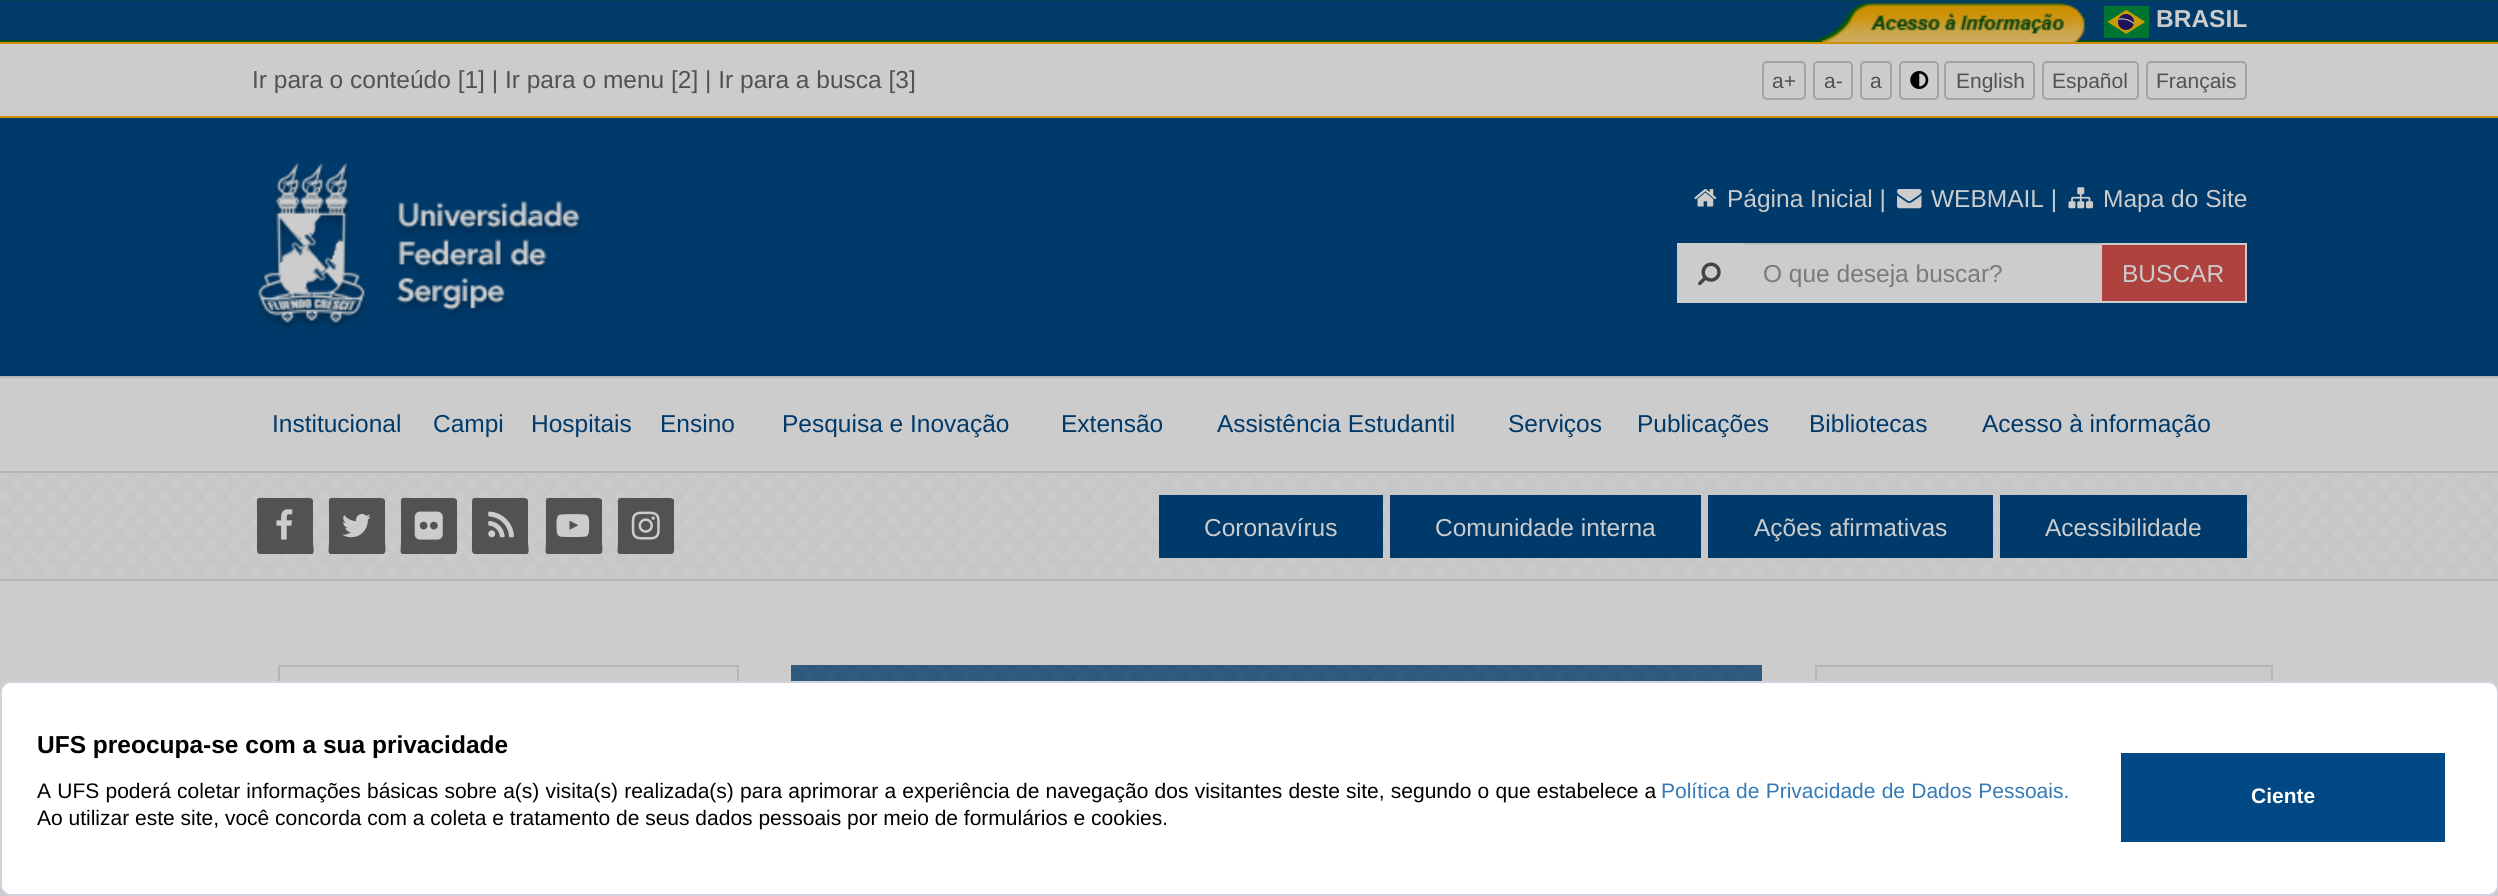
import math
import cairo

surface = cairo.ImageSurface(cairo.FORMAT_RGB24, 2498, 896)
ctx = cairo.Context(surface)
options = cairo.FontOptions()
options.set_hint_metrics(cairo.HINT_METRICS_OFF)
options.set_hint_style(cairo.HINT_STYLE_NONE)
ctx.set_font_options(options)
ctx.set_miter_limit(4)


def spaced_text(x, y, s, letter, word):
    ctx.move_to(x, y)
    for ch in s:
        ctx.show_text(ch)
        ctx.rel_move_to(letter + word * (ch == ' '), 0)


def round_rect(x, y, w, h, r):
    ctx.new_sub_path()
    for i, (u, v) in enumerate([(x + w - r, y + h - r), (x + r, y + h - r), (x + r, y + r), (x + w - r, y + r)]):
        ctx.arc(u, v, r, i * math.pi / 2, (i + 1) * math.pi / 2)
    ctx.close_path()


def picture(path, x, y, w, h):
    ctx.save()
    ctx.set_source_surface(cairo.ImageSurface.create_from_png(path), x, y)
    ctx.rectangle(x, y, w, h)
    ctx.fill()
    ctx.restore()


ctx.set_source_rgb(0.8, 0.8, 0.8)
ctx.paint()
ctx.set_source_rgb(0, 0.227, 0.416)
ctx.rectangle(0, 118, 2498, 258)
ctx.fill()
picture("img1.png", 0, 0, 2498, 42)
ctx.set_source_rgb(0.8, 0.569, 0.031)
ctx.rectangle(0, 42, 2498, 2)
ctx.fill()
picture("img2.png", 1816, 1, 269, 41)
picture("img3.png", 2104, 6, 45, 32)
ctx.select_font_face("Liberation Sans", cairo.FONT_SLANT_NORMAL, cairo.FONT_WEIGHT_BOLD)
ctx.set_font_size(24.5)
ctx.set_source_rgb(0.8, 0.8, 0.8)
ctx.move_to(2156, 27)
ctx.show_text("BRASIL")
ctx.set_source_rgb(0.8, 0.569, 0.031)
ctx.rectangle(0, 116, 2498, 2)
ctx.fill()
ctx.select_font_face("Liberation Sans")
ctx.set_source_rgb(0.322, 0.322, 0.322)
ctx.move_to(252, 88)
ctx.show_text("Ir para o conteúdo [1] | Ir para o menu [2] | Ir para a busca [3]")
round_rect(1763, 62, 42, 37, 4)
ctx.set_source_rgb(0.639, 0.639, 0.639)
ctx.stroke()
ctx.set_font_size(21)
ctx.set_source_rgb(0.322, 0.322, 0.322)
ctx.move_to(1772, 88)
ctx.show_text("a+")
round_rect(1814, 62, 38, 37, 4)
ctx.set_source_rgb(0.639, 0.639, 0.639)
ctx.stroke()
ctx.set_source_rgb(0.322, 0.322, 0.322)
ctx.move_to(1824, 88)
ctx.show_text("a-")
round_rect(1861, 62, 30, 37, 4)
ctx.set_source_rgb(0.639, 0.639, 0.639)
ctx.stroke()
ctx.set_source_rgb(0.322, 0.322, 0.322)
ctx.move_to(1870, 88)
ctx.show_text("a")
round_rect(1900, 62, 38, 37, 4)
ctx.set_source_rgb(0.639, 0.639, 0.639)
ctx.stroke()
picture("img4.png", 1910, 71, 19, 18)
round_rect(1945, 62, 89, 37, 4)
ctx.stroke()
ctx.set_source_rgb(0.322, 0.322, 0.322)
ctx.move_to(1956, 88)
ctx.show_text("English")
round_rect(2043, 62, 95, 37, 4)
ctx.set_source_rgb(0.639, 0.639, 0.639)
ctx.stroke()
ctx.set_source_rgb(0.322, 0.322, 0.322)
ctx.move_to(2052, 88)
ctx.show_text("Español")
round_rect(2147, 62, 99, 37, 4)
ctx.set_source_rgb(0.639, 0.639, 0.639)
ctx.stroke()
ctx.set_source_rgb(0.322, 0.322, 0.322)
ctx.move_to(2156, 88)
ctx.show_text("Français")
picture("img5.png", 258, 162, 324, 169)
picture("img6.png", 1694, 189, 23, 18)
ctx.set_font_size(24.5)
ctx.set_source_rgb(0.8, 0.8, 0.8)
ctx.move_to(1727, 207)
ctx.show_text("Página Inicial |")
picture("img7.png", 1897, 189, 25, 20)
ctx.move_to(1931, 207)
ctx.show_text("WEBMAIL |")
picture("img8.png", 2068, 187, 25, 22)
ctx.move_to(2103, 207)
ctx.show_text("Mapa do Site")
ctx.rectangle(1677, 243, 66, 60)
ctx.fill()
picture("img9.png", 1698, 262, 23, 24)
ctx.rectangle(1743, 245, 359, 58)
ctx.fill()
ctx.set_source_rgb(0.741, 0.741, 0.741)
ctx.rectangle(1743, 243, 359, 2)
ctx.fill()
ctx.set_source_rgb(0.478, 0.478, 0.478)
ctx.move_to(1763, 282)
ctx.show_text("O que deseja buscar?")
ctx.set_source_rgb(0.8, 0.8, 0.8)
ctx.rectangle(2102, 243, 145, 60)
ctx.fill()
ctx.set_source_rgb(0.682, 0.259, 0.247)
ctx.rectangle(2102, 245, 143, 56)
ctx.fill()
ctx.set_source_rgb(0.8, 0.8, 0.8)
ctx.move_to(2122, 282)
ctx.show_text("BUSCAR")
ctx.set_source_rgb(0.71, 0.71, 0.71)
ctx.rectangle(0, 376, 2498, 2)
ctx.fill()
ctx.rectangle(0, 471, 2498, 2)
ctx.fill()
ctx.set_source_rgb(0, 0.227, 0.416)
ctx.move_to(272, 432)
ctx.show_text("Institucional")
ctx.move_to(433, 432)
ctx.show_text("Campi")
ctx.move_to(531, 432)
ctx.show_text("Hospitais")
ctx.move_to(660, 432)
ctx.show_text("Ensino")
ctx.move_to(782, 432)
ctx.show_text("Pesquisa e Inovação")
ctx.move_to(1061, 432)
ctx.show_text("Extensão")
ctx.move_to(1217, 432)
ctx.show_text("Assistência Estudantil")
ctx.move_to(1508, 432)
ctx.show_text("Serviços")
ctx.move_to(1637, 432)
ctx.show_text("Publicações")
ctx.move_to(1809, 432)
ctx.show_text("Bibliotecas")
ctx.move_to(1982, 432)
ctx.show_text("Acesso à informação")
picture("img10.png", 0, 473, 2498, 106)
ctx.set_source_rgb(0.71, 0.71, 0.71)
ctx.rectangle(0, 579, 2498, 2)
ctx.fill()
ctx.set_source_rgb(0.322, 0.322, 0.322)
ctx.new_path()
ctx.move_to(313, 501)
ctx.line_to(313, 543)
ctx.curve_to(313, 546, 315, 553, 312, 554)
ctx.line_to(260, 554)
ctx.curve_to(256, 554, 257, 548, 257, 543)
ctx.line_to(257, 509)
ctx.curve_to(257, 496, 255, 498, 268, 498)
ctx.line_to(302, 498)
ctx.curve_to(307, 498, 313, 497, 313, 501)
ctx.close_path()
ctx.fill()
picture("img11.png", 276, 509, 17, 31)
ctx.new_path()
ctx.move_to(385, 501)
ctx.line_to(385, 543)
ctx.curve_to(385, 546, 387, 553, 383, 554)
ctx.line_to(331, 554)
ctx.curve_to(327, 554, 329, 548, 329, 543)
ctx.line_to(329, 509)
ctx.curve_to(329, 496, 327, 498, 340, 498)
ctx.line_to(374, 498)
ctx.curve_to(378, 498, 385, 497, 385, 501)
ctx.close_path()
ctx.fill()
picture("img12.png", 342, 513, 29, 25)
ctx.new_path()
ctx.move_to(457, 501)
ctx.line_to(457, 543)
ctx.curve_to(457, 546, 458, 553, 455, 554)
ctx.line_to(403, 554)
ctx.curve_to(399, 554, 401, 548, 401, 543)
ctx.line_to(401, 509)
ctx.curve_to(401, 496, 399, 498, 412, 498)
ctx.line_to(446, 498)
ctx.curve_to(450, 498, 457, 497, 457, 501)
ctx.close_path()
ctx.fill()
picture("img13.png", 414, 511, 29, 29)
ctx.new_path()
ctx.move_to(528, 501)
ctx.line_to(528, 543)
ctx.curve_to(528, 546, 530, 553, 527, 554)
ctx.line_to(475, 554)
ctx.curve_to(471, 554, 472, 548, 472, 543)
ctx.line_to(472, 509)
ctx.curve_to(472, 496, 471, 498, 483, 498)
ctx.line_to(518, 498)
ctx.curve_to(522, 498, 528, 497, 528, 501)
ctx.close_path()
ctx.fill()
picture("img14.png", 488, 511, 26, 27)
ctx.new_path()
ctx.move_to(602, 501)
ctx.line_to(602, 543)
ctx.curve_to(602, 546, 604, 553, 600, 554)
ctx.line_to(548, 554)
ctx.curve_to(544, 554, 546, 548, 546, 543)
ctx.line_to(546, 509)
ctx.curve_to(546, 496, 544, 498, 557, 498)
ctx.line_to(591, 498)
ctx.curve_to(595, 498, 602, 497, 602, 501)
ctx.close_path()
ctx.fill()
picture("img15.png", 556, 514, 34, 24)
ctx.new_path()
ctx.move_to(674, 501)
ctx.line_to(674, 543)
ctx.curve_to(674, 546, 675, 553, 672, 554)
ctx.line_to(620, 554)
ctx.curve_to(616, 554, 618, 548, 618, 543)
ctx.line_to(618, 509)
ctx.curve_to(618, 496, 616, 498, 629, 498)
ctx.line_to(663, 498)
ctx.curve_to(667, 498, 674, 497, 674, 501)
ctx.close_path()
ctx.fill()
picture("img16.png", 631, 511, 29, 29)
ctx.set_source_rgb(0, 0.227, 0.416)
ctx.rectangle(1159, 495, 224, 63)
ctx.fill()
ctx.set_source_rgb(0.8, 0.8, 0.8)
ctx.move_to(1204, 536)
ctx.show_text("Coronavírus")
ctx.set_source_rgb(0, 0.227, 0.416)
ctx.rectangle(1390, 495, 311, 63)
ctx.fill()
ctx.set_source_rgb(0.8, 0.8, 0.8)
ctx.move_to(1435, 536)
ctx.show_text("Comunidade interna")
ctx.set_source_rgb(0, 0.227, 0.416)
ctx.rectangle(1708, 495, 285, 63)
ctx.fill()
ctx.set_source_rgb(0.8, 0.8, 0.8)
ctx.move_to(1754, 536)
ctx.show_text("Ações afirmativas")
ctx.set_source_rgb(0, 0.227, 0.416)
ctx.rectangle(2000, 495, 247, 63)
ctx.fill()
ctx.set_source_rgb(0.8, 0.8, 0.8)
ctx.move_to(2045, 536)
ctx.show_text("Acessibilidade")
ctx.rectangle(279, 666, 459, 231)
ctx.set_source_rgb(0.71, 0.71, 0.71)
ctx.stroke()
ctx.set_source_rgb(0, 0.227, 0.416)
ctx.rectangle(791, 665, 971, 16)
ctx.fill()
picture("img17.png", 791, 665, 971, 16)
ctx.set_source_rgb(0.788, 0.788, 0.788)
ctx.rectangle(1817, 667, 454, 14)
ctx.fill()
ctx.rectangle(1816, 666, 456, 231)
ctx.set_source_rgb(0.71, 0.71, 0.71)
ctx.stroke()
ctx.set_source_rgb(1, 1, 1)
round_rect(1, 682, 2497, 213, 10)
ctx.fill_preserve()
ctx.set_source_rgb(0.824, 0.824, 0.863)
ctx.stroke()
ctx.select_font_face("Liberation Sans", cairo.FONT_SLANT_NORMAL, cairo.FONT_WEIGHT_BOLD)
ctx.set_source_rgb(0, 0, 0)
ctx.move_to(37, 753)
ctx.show_text("UFS preocupa-se com a sua privacidade")
ctx.select_font_face("Liberation Sans")
ctx.set_font_size(21)
spaced_text(37, 798, "A UFS poderá coletar informações básicas sobre a(s) visita(s) realizada(s) para aprimorar a experiência de navegação dos visitantes deste site, segundo o que estabelece a", 0, 0.4)
ctx.set_source_rgb(0.2, 0.478, 0.718)
spaced_text(1661, 798, "Política de Privacidade de Dados Pessoais.", 0, 0.4)
ctx.set_source_rgb(0, 0, 0)
ctx.move_to(37, 825)
ctx.show_text("Ao utilizar este site, você concorda com a coleta e tratamento de seus dados pessoais por meio de formulários e cookies.")
ctx.set_source_rgb(0, 0.286, 0.518)
ctx.rectangle(2121, 753, 324, 89)
ctx.fill()
ctx.select_font_face("Liberation Sans", cairo.FONT_SLANT_NORMAL, cairo.FONT_WEIGHT_BOLD)
ctx.set_source_rgb(1, 1, 1)
ctx.move_to(2251, 803)
ctx.show_text("Ciente")
surface.write_to_png("page.png")
